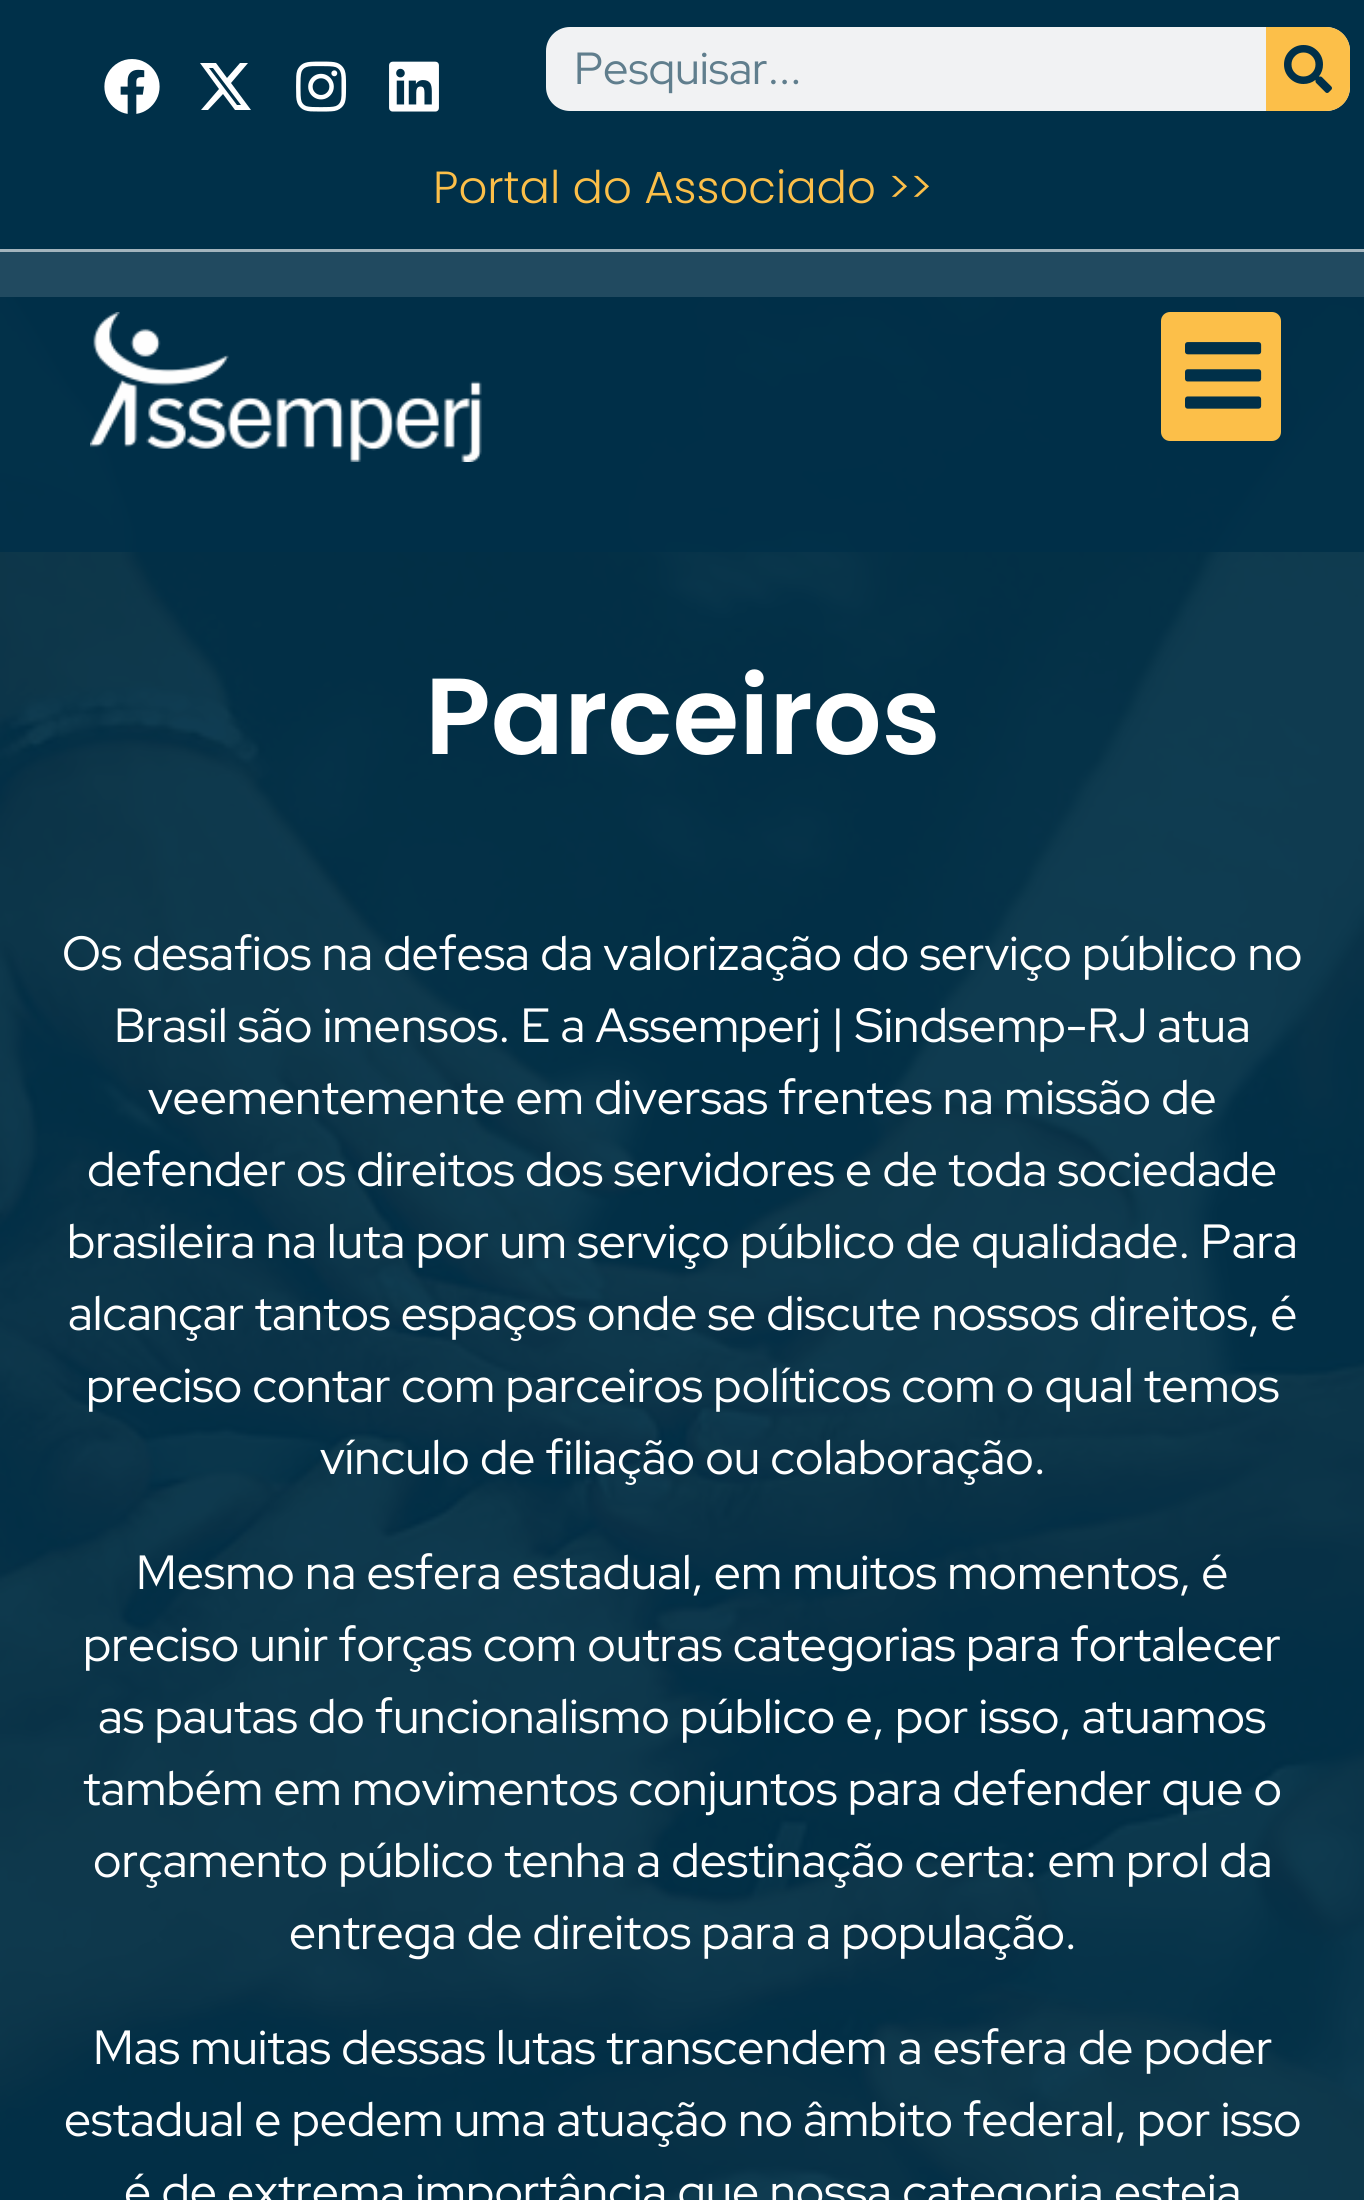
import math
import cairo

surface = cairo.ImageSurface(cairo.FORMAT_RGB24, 1364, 2200)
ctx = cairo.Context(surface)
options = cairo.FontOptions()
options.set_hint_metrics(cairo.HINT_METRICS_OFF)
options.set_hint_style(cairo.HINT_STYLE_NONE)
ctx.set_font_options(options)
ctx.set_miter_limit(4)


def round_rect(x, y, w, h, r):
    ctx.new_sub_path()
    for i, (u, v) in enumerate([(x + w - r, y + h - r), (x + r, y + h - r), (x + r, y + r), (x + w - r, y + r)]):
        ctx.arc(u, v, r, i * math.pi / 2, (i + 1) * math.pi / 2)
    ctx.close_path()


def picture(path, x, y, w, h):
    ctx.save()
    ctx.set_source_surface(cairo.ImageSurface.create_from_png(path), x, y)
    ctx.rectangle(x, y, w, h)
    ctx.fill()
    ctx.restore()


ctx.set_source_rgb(1, 1, 1)
ctx.paint()
ctx.set_source_rgb(0, 0.188, 0.286)
ctx.rectangle(0, 0, 1364, 249)
ctx.fill()
ctx.set_source_rgb(0.639, 0.706, 0.741)
ctx.rectangle(0, 249, 1364, 3)
ctx.fill()
picture("img1.png", 104, 59, 56, 55)
ctx.set_source_rgb(1, 1, 1)
ctx.new_path()
ctx.move_to(240, 63)
ctx.line_to(248, 63)
ctx.line_to(231, 83)
ctx.line_to(251, 110)
ctx.line_to(235, 110)
ctx.line_to(223, 94)
ctx.line_to(208, 110)
ctx.line_to(201, 110)
ctx.line_to(219, 89)
ctx.line_to(200, 63)
ctx.line_to(216, 63)
ctx.line_to(227, 78)
ctx.close_path()
ctx.move_to(237, 105)
ctx.line_to(241, 105)
ctx.line_to(213, 68)
ctx.line_to(209, 68)
ctx.close_path()
ctx.fill()
picture("img2.png", 296, 61, 51, 51)
picture("img3.png", 389, 61, 50, 51)
ctx.set_source_rgb(0.945, 0.949, 0.953)
round_rect(546, 27, 804, 84, 24)
ctx.fill()
ctx.select_font_face("Red Hat Display")
ctx.set_font_size(45)
ctx.set_source_rgb(0.376, 0.494, 0.553)
ctx.move_to(574, 84)
ctx.show_text("Pesquisar...")
ctx.set_source_rgb(0.988, 0.749, 0.286)
ctx.new_path()
ctx.move_to(1266, 27)
ctx.line_to(1326, 27)
ctx.curve_to(1339.5, 27, 1350, 37.5, 1350, 51)
ctx.line_to(1350, 87)
ctx.curve_to(1350, 100.5, 1339.5, 111, 1326, 111)
ctx.line_to(1266, 111)
ctx.close_path()
ctx.fill()
picture("img4.png", 1284, 45, 48, 48)
ctx.select_font_face("Poppins Light")
ctx.move_to(433, 203)
ctx.show_text("Portal do Associado >>")
picture("img7.png", 0, 297, 1364, 1903)
ctx.set_source_rgba(0, 0.188, 0.286, 0.87)
ctx.rectangle(0, 252, 1364, 300)
ctx.fill()
picture("img5.png", 90, 312, 392, 150)
ctx.set_source_rgb(0.988, 0.749, 0.286)
round_rect(1161, 312, 120, 129, 9)
ctx.fill()
picture("img6.png", 1185, 342, 77, 67)
ctx.select_font_face("Poppins SemiBold")
ctx.set_font_size(108)
ctx.set_source_rgb(1, 1, 1)
ctx.move_to(425, 754)
ctx.show_text("Parceiros")
ctx.select_font_face("Red Hat Display")
ctx.set_font_size(48)
ctx.move_to(62, 970)
ctx.show_text("Os desafios na defesa da valorização do serviço público no")
ctx.move_to(114, 1042)
ctx.show_text("Brasil são imensos. E a Assemperj | Sindsemp-RJ atua")
ctx.move_to(148, 1114)
ctx.show_text("veementemente em diversas frentes na missão de")
ctx.move_to(87, 1186)
ctx.show_text("defender os direitos dos servidores e de toda sociedade")
ctx.move_to(67, 1258)
ctx.show_text("brasileira na luta por um serviço público de qualidade. Para")
ctx.move_to(68, 1330)
ctx.show_text("alcançar tantos espaços onde se discute nossos direitos, é")
ctx.move_to(86, 1402)
ctx.show_text("preciso contar com parceiros políticos com o qual temos")
ctx.move_to(320, 1474)
ctx.show_text("vínculo de filiação ou colaboração.")
ctx.move_to(136, 1589)
ctx.show_text("Mesmo na esfera estadual, em muitos momentos, é")
ctx.move_to(83, 1661)
ctx.show_text("preciso unir forças com outras categorias para fortalecer")
ctx.move_to(98, 1733)
ctx.show_text("as pautas do funcionalismo público e, por isso, atuamos")
ctx.move_to(83, 1805)
ctx.show_text("também em movimentos conjuntos para defender que o")
ctx.move_to(93, 1877)
ctx.show_text("orçamento público tenha a destinação certa: em prol da")
ctx.move_to(289, 1949)
ctx.show_text("entrega de direitos para a população.")
ctx.move_to(93, 2064)
ctx.show_text("Mas muitas dessas lutas transcendem a esfera de poder")
ctx.move_to(64, 2136)
ctx.show_text("estadual e pedem uma atuação no âmbito federal, por isso")
ctx.move_to(124, 2208)
ctx.show_text("é de extrema importância que nossa categoria esteja")
surface.write_to_png("page.png")
